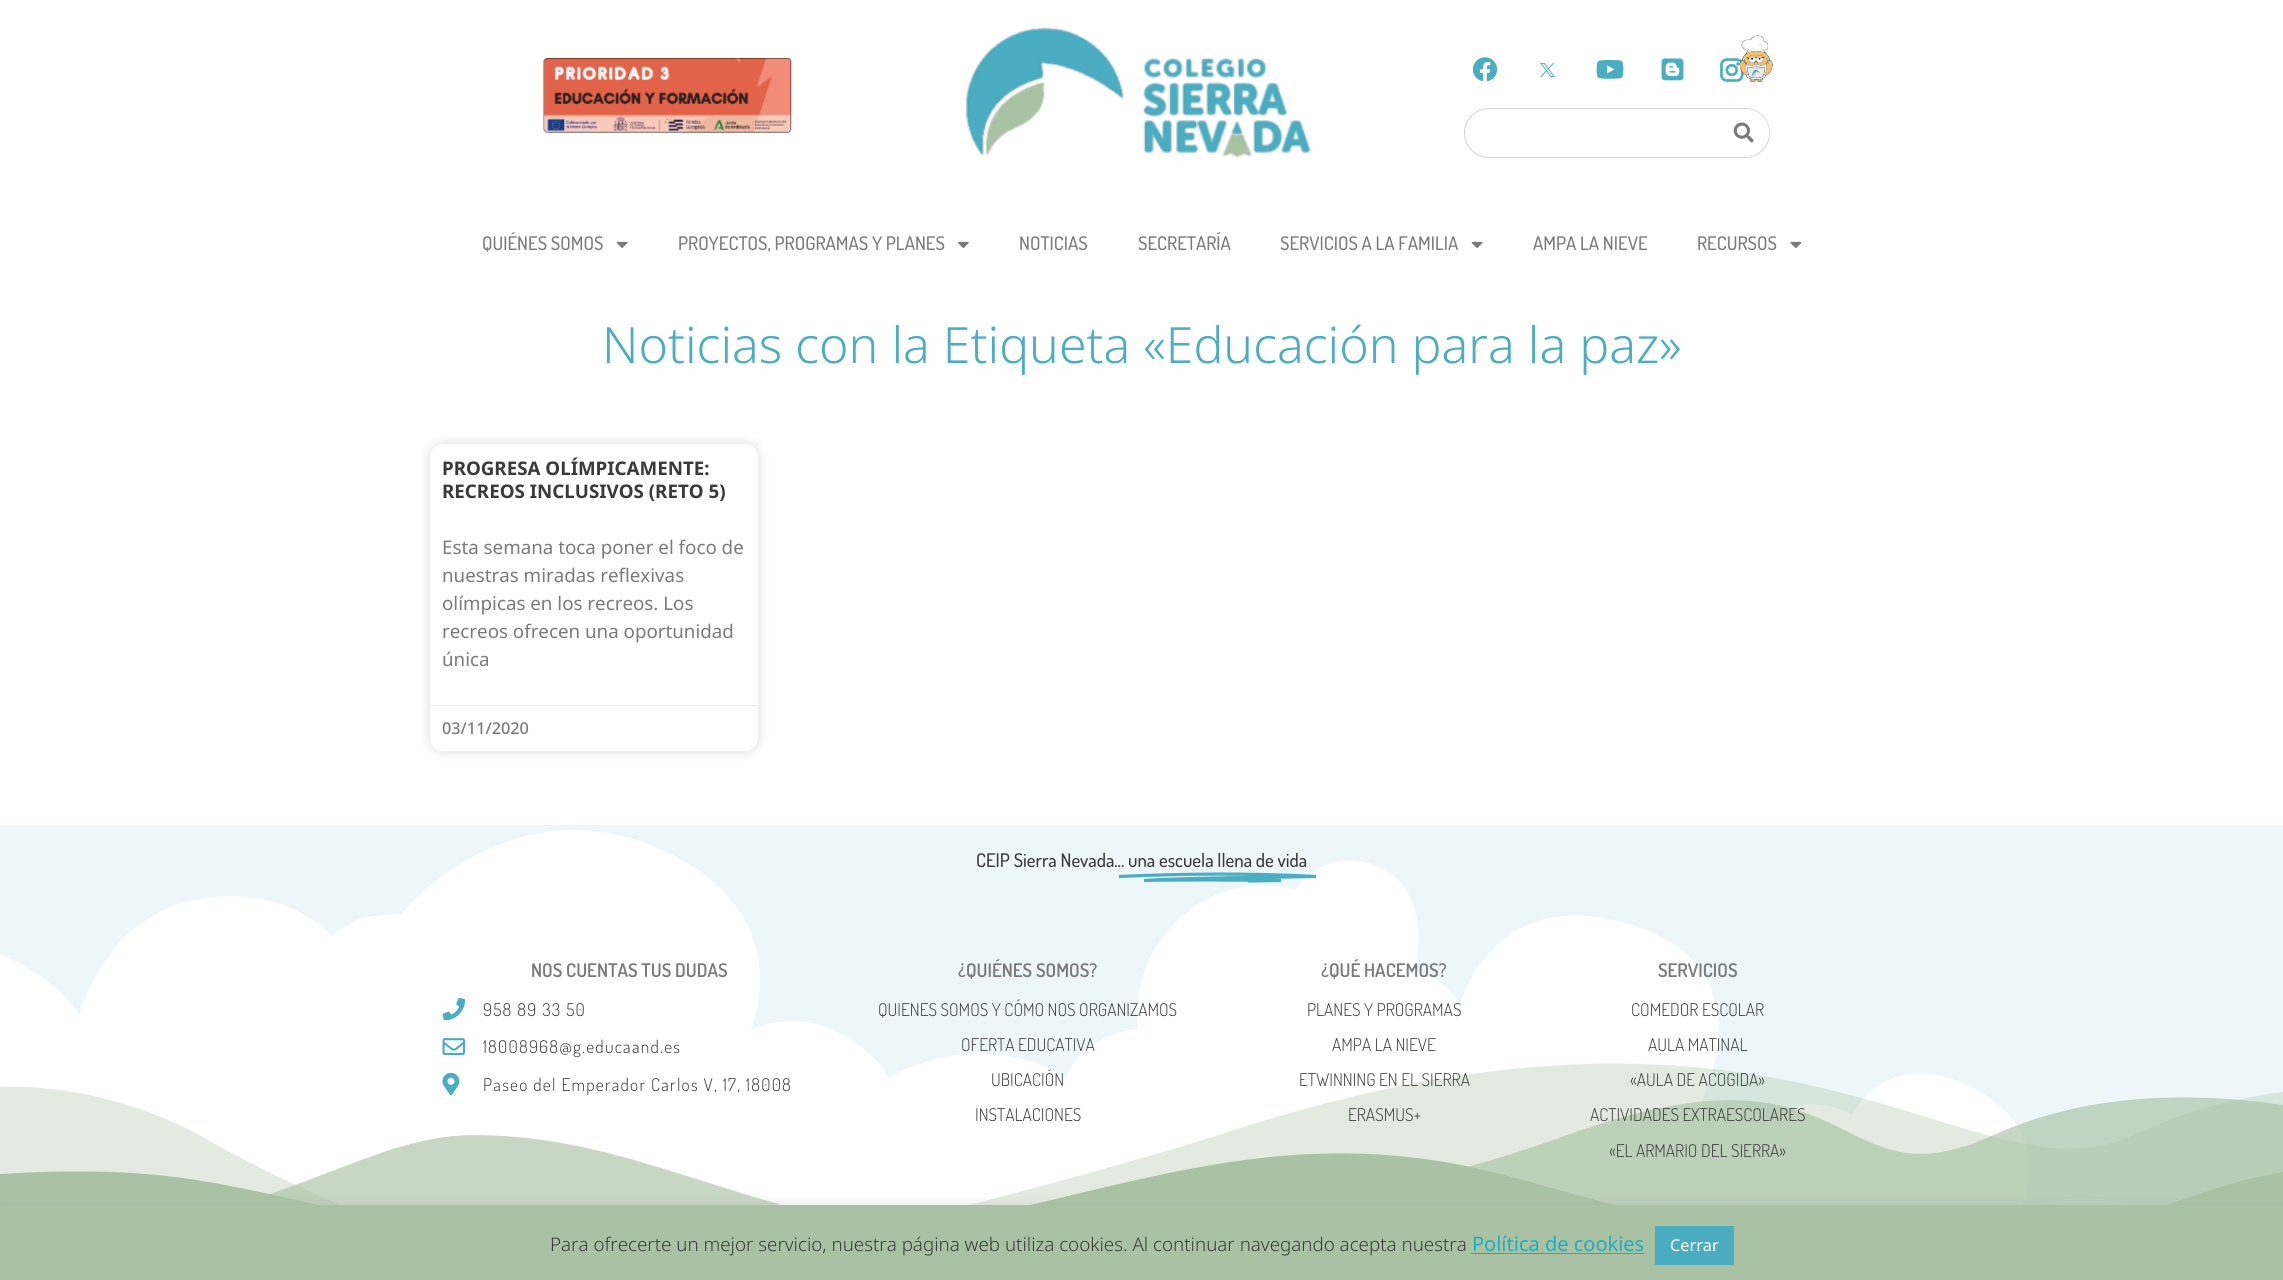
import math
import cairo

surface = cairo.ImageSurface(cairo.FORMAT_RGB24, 2283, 1280)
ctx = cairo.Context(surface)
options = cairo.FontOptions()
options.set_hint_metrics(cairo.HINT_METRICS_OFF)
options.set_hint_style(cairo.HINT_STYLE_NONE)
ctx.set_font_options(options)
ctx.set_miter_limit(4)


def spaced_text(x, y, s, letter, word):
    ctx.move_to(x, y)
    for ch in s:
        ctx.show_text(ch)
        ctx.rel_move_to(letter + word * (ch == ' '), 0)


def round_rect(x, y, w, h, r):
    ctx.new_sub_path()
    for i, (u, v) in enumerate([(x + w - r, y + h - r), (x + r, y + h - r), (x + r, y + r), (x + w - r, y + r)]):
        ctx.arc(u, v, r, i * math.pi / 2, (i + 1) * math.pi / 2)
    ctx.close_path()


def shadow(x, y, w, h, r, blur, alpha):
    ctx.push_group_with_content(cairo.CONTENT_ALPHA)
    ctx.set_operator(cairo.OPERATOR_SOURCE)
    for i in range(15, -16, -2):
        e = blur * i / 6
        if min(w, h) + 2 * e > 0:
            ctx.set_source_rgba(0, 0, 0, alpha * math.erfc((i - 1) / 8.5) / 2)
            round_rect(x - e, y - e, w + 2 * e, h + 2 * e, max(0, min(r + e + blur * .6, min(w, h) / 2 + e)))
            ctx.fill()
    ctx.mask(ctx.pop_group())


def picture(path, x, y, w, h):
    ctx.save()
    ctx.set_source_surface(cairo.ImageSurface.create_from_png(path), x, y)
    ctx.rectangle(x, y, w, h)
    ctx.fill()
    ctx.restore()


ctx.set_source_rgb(1, 1, 1)
ctx.paint()
picture("img1.png", 543, 58, 249, 75)
picture("img2.png", 965, 27, 347, 131)
picture("img3.png", 1472, 57, 26, 25)
picture("img4.png", 1540, 63, 15, 14)
picture("img5.png", 1596, 60, 28, 19)
picture("img6.png", 1661, 58, 23, 23)
picture("img7.png", 1720, 35, 53, 47)
round_rect(1464.5, 108.5, 305, 49, 24.5)
ctx.set_source_rgb(0.831, 0.831, 0.831)
ctx.set_line_width(1)
ctx.stroke()
ctx.set_source_rgb(1, 1, 1)
ctx.new_path()
ctx.move_to(1719, 109)
ctx.line_to(1745.5, 109)
ctx.curve_to(1758.5, 109, 1769, 119.5, 1769, 132.5)
ctx.curve_to(1769, 145.5, 1758.5, 156, 1745.5, 156)
ctx.line_to(1719, 156)
ctx.close_path()
ctx.fill()
picture("img8.png", 1733, 122, 21, 21)
ctx.select_font_face("Dosis Medium")
ctx.set_font_size(18.75)
ctx.set_source_rgb(0.478, 0.478, 0.478)
ctx.move_to(482, 250)
ctx.show_text("QUIÉNES SOMOS")
picture("img9.png", 616, 241, 12, 7)
ctx.move_to(678, 250)
ctx.show_text("PROYECTOS, PROGRAMAS Y PLANES")
picture("img10.png", 958, 241, 11, 7)
ctx.move_to(1019, 250)
ctx.show_text("NOTICIAS")
ctx.move_to(1138, 250)
ctx.show_text("SECRETARÍA")
ctx.move_to(1280, 250)
ctx.show_text("SERVICIOS A LA FAMILIA")
picture("img9.png", 1471, 241, 12, 7)
ctx.move_to(1533, 250)
ctx.show_text("AMPA LA NIEVE")
ctx.move_to(1697, 250)
ctx.show_text("RECURSOS")
picture("img11.png", 1790, 241, 12, 7)
ctx.select_font_face("Noto Sans Light")
ctx.set_font_size(50)
ctx.set_source_rgb(0.29, 0.678, 0.757)
ctx.move_to(602, 363)
ctx.show_text("Noticias con la Etiqueta «Educación para la paz»")
ctx.set_source_rgb(0, 0, 0)
shadow(430, 444, 328, 307, 13, 6, 0.15)
ctx.set_source_rgb(1, 1, 1)
round_rect(430, 444, 328, 307, 13)
ctx.fill()
ctx.select_font_face("Noto Sans", cairo.FONT_SLANT_NORMAL, cairo.FONT_WEIGHT_BOLD)
ctx.set_font_size(18.75)
ctx.set_source_rgb(0.227, 0.227, 0.227)
ctx.move_to(442, 475)
ctx.show_text("PROGRESA OLÍMPICAMENTE:")
ctx.move_to(442, 498)
ctx.show_text("RECREOS INCLUSIVOS (RETO 5)")
ctx.select_font_face("Noto Sans")
ctx.set_source_rgb(0.478, 0.478, 0.478)
ctx.move_to(442, 554)
ctx.show_text("Esta semana toca poner el foco de")
ctx.move_to(442, 582)
ctx.show_text("nuestras miradas reflexivas")
ctx.move_to(442, 610)
ctx.show_text("olímpicas en los recreos. Los")
ctx.move_to(442, 638)
ctx.show_text("recreos ofrecen una oportunidad")
ctx.move_to(442, 666)
ctx.show_text("única")
ctx.set_source_rgb(0.918, 0.918, 0.918)
ctx.rectangle(430, 705, 328, 1)
ctx.fill()
ctx.select_font_face("Noto Sans Medium")
ctx.set_font_size(16.25)
ctx.set_source_rgb(0.478, 0.478, 0.478)
ctx.move_to(442, 734)
ctx.show_text("03/11/2020")
picture("img12.png", 0, 825, 2283, 380)
ctx.select_font_face("Dosis Medium")
ctx.set_font_size(18.75)
ctx.set_source_rgb(0.227, 0.227, 0.227)
ctx.move_to(976, 867)
ctx.show_text("CEIP Sierra Nevada... una escuela llena de vida")
ctx.new_path()
ctx.move_to(1119, 876.5)
ctx.curve_to(1184.5, 873.5, 1250.5, 873, 1316, 876.5)
ctx.curve_to(1270.5, 877.5, 1189.5, 877.5, 1144, 880.5)
ctx.curve_to(1177.5, 879.5, 1248, 880, 1281, 880.5)
ctx.line_to(1248, 881)
ctx.set_source_rgb(0.29, 0.678, 0.757)
ctx.set_line_width(3.2)
ctx.stroke()
ctx.select_font_face("Dosis SemiBold")
ctx.set_source_rgb(0.478, 0.478, 0.478)
ctx.move_to(531, 977)
ctx.show_text("NOS CUENTAS TUS DUDAS")
picture("img13.png", 442, 997, 23, 24)
ctx.select_font_face("Dosis Light")
ctx.set_font_size(17.5)
ctx.set_source_rgb(0.227, 0.227, 0.227)
spaced_text(483, 1016, "958 89 33 50", 1.25, 0)
picture("img14.png", 442, 1038, 23, 17)
spaced_text(483, 1053, "18008968@g.educaand.es", 1.25, 0)
picture("img16.png", 0, 1063, 2283, 142)
picture("img15.png", 442, 1072, 18, 24)
spaced_text(483, 1091, "Paseo del Emperador Carlos V, 17, 18008", 1.25, 0)
ctx.select_font_face("Dosis SemiBold")
ctx.set_font_size(18.75)
ctx.set_source_rgb(0.478, 0.478, 0.478)
ctx.move_to(958, 977)
ctx.show_text("¿QUIÉNES SOMOS?")
ctx.select_font_face("Dosis Light")
ctx.set_font_size(17.5)
ctx.set_source_rgb(0.227, 0.227, 0.227)
ctx.move_to(878, 1016)
ctx.show_text("QUIENES SOMOS Y CÓMO NOS ORGANIZAMOS")
ctx.move_to(961, 1051)
ctx.show_text("OFERTA EDUCATIVA")
ctx.move_to(991, 1086)
ctx.show_text("UBICACIÓN")
ctx.move_to(975, 1121)
ctx.show_text("INSTALACIONES")
ctx.select_font_face("Dosis SemiBold")
ctx.set_font_size(18.75)
ctx.set_source_rgb(0.478, 0.478, 0.478)
ctx.move_to(1321, 977)
ctx.show_text("¿QUÉ HACEMOS?")
ctx.select_font_face("Dosis Light")
ctx.set_font_size(17.5)
ctx.set_source_rgb(0.227, 0.227, 0.227)
ctx.move_to(1307, 1016)
ctx.show_text("PLANES Y PROGRAMAS")
ctx.move_to(1332, 1051)
ctx.show_text("AMPA LA NIEVE")
ctx.move_to(1299, 1086)
ctx.show_text("ETWINNING EN EL SIERRA")
ctx.move_to(1348, 1121)
ctx.show_text("ERASMUS+")
ctx.select_font_face("Dosis SemiBold")
ctx.set_font_size(18.75)
ctx.set_source_rgb(0.478, 0.478, 0.478)
ctx.move_to(1658, 977)
ctx.show_text("SERVICIOS")
ctx.select_font_face("Dosis Light")
ctx.set_font_size(17.5)
ctx.set_source_rgb(0.227, 0.227, 0.227)
ctx.move_to(1631, 1016)
ctx.show_text("COMEDOR ESCOLAR")
ctx.move_to(1648, 1051)
ctx.show_text("AULA MATINAL")
ctx.move_to(1630, 1086)
ctx.show_text("«AULA DE ACOGIDA»")
ctx.move_to(1590, 1121)
ctx.show_text("ACTIVIDADES EXTRAESCOLARES")
ctx.move_to(1609, 1157)
ctx.show_text("«EL ARMARIO DEL SIERRA»")
ctx.set_source_rgb(0.675, 0.671, 0.671)
shadow(0, 1204, 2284, 75, 0, 6, 0.3)
ctx.set_source_rgb(0.667, 0.761, 0.643)
ctx.rectangle(0, 1205, 2283, 75)
ctx.fill()
ctx.select_font_face("Noto Sans Light")
ctx.set_font_size(18.75)
ctx.set_source_rgb(0.227, 0.227, 0.227)
ctx.move_to(550, 1251)
ctx.show_text("Para ofrecerte un mejor servicio, nuestra página web utiliza cookies. Al continuar navegando acepta nuestra")
ctx.select_font_face("Noto Sans")
ctx.set_font_size(20)
ctx.set_source_rgb(0.122, 0.675, 0.757)
ctx.move_to(1472, 1251)
ctx.show_text("Política de cookies")
ctx.rectangle(1471, 1253, 173, 1)
ctx.fill()
ctx.set_source_rgb(0.29, 0.678, 0.757)
ctx.rectangle(1655, 1226, 79, 39)
ctx.fill()
ctx.set_font_size(16.25)
ctx.set_source_rgb(1, 1, 1)
ctx.move_to(1670, 1251)
ctx.show_text("Cerrar")
surface.write_to_png("page.png")
